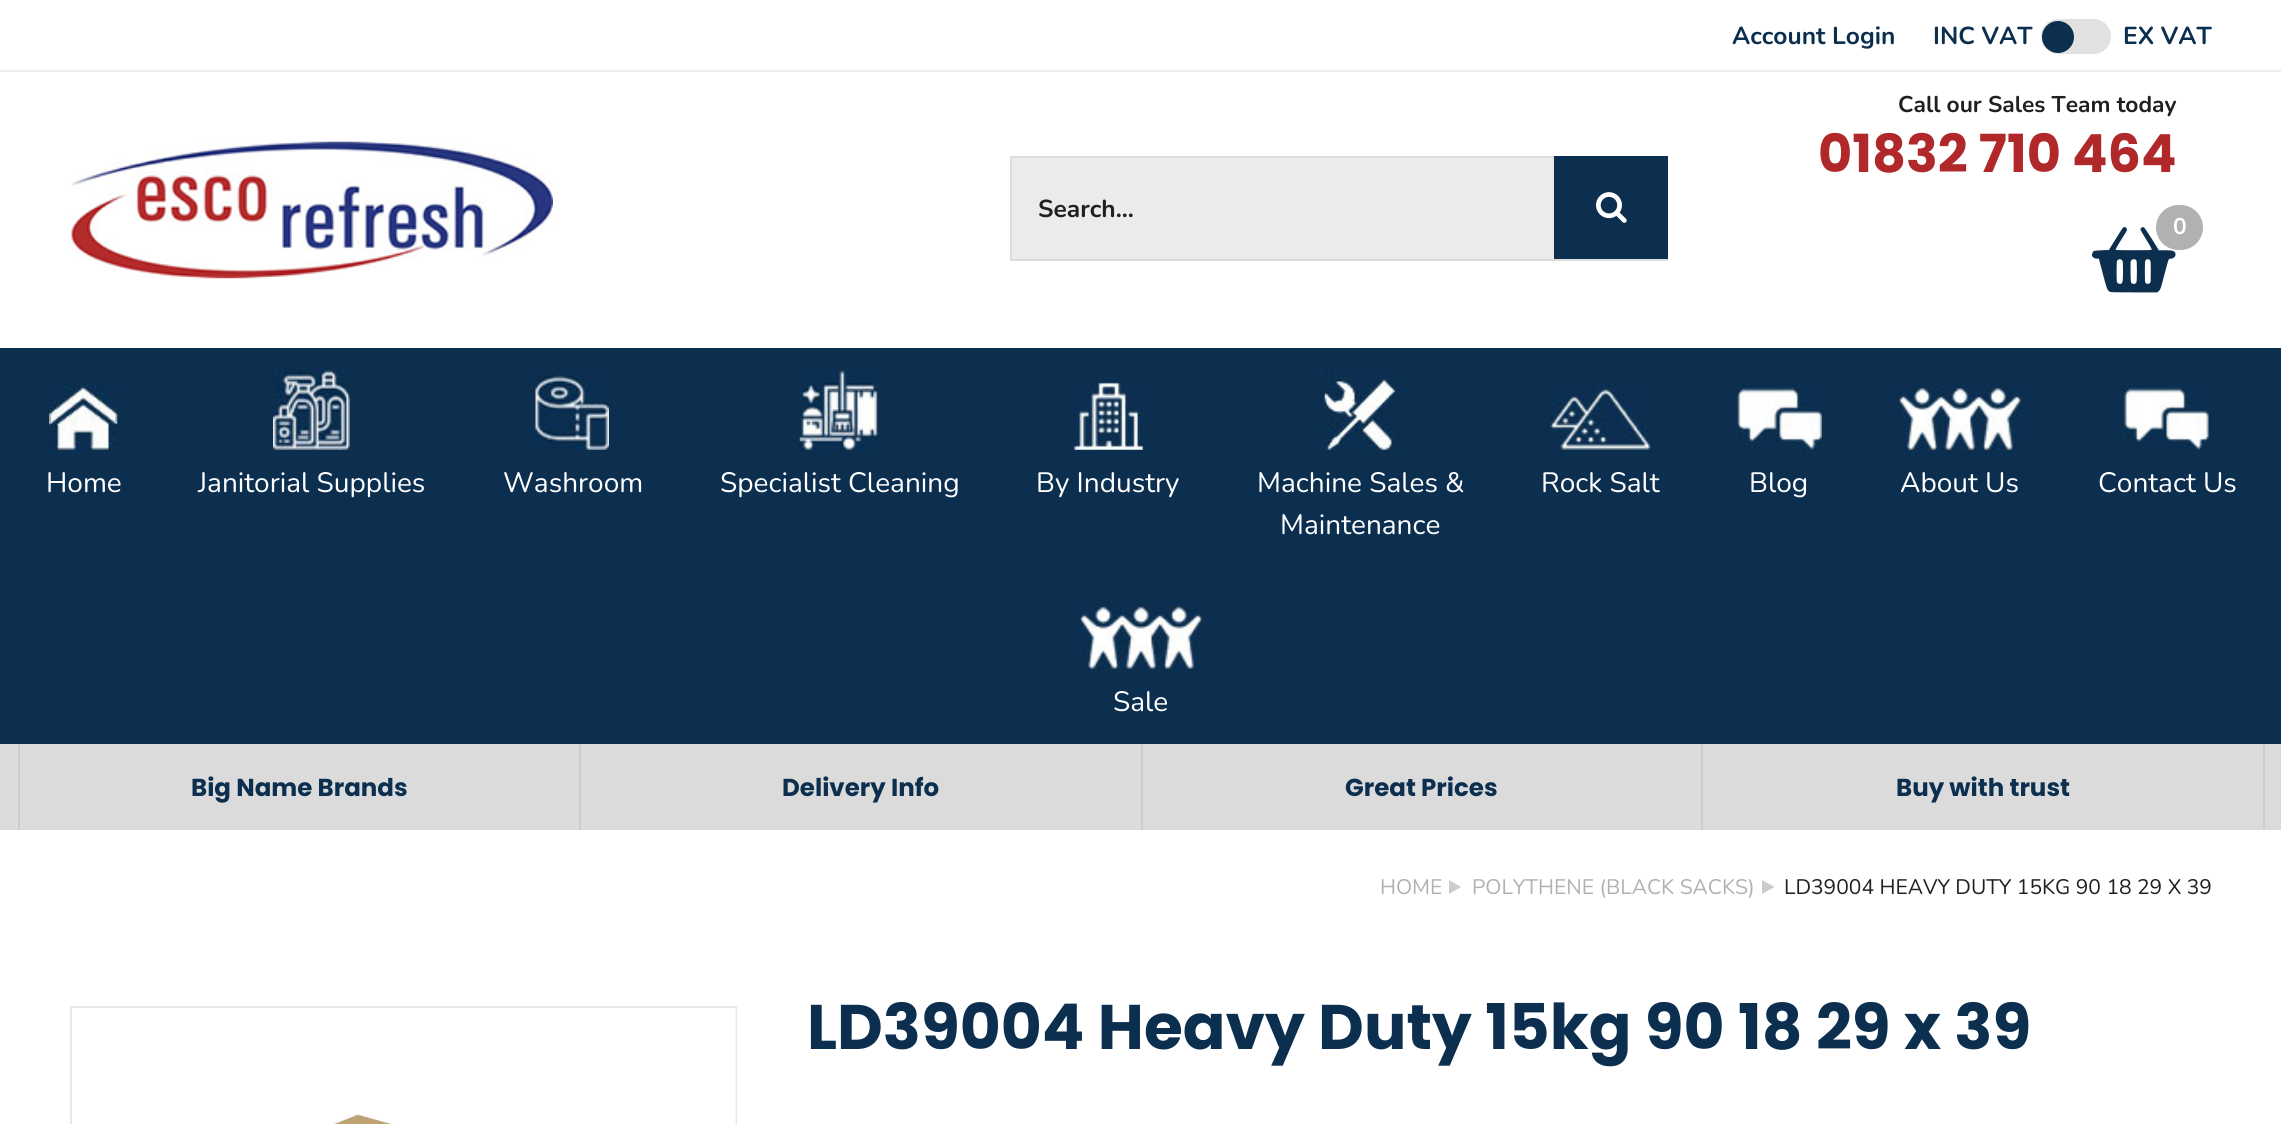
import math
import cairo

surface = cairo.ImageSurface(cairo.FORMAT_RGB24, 2281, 1124)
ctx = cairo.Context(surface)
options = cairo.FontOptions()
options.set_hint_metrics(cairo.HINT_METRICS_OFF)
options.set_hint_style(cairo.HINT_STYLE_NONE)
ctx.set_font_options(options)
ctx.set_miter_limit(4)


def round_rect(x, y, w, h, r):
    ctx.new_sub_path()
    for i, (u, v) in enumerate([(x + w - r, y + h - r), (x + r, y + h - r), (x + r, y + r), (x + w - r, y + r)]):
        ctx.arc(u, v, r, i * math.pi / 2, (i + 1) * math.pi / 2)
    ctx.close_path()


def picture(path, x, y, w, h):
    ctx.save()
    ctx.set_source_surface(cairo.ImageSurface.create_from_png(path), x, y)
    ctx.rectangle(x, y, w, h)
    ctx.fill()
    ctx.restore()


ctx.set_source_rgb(1, 1, 1)
ctx.paint()
ctx.select_font_face("Nunito", cairo.FONT_SLANT_NORMAL, cairo.FONT_WEIGHT_BOLD)
ctx.set_font_size(24.5)
ctx.set_source_rgb(0.047, 0.184, 0.314)
ctx.move_to(1732, 44)
ctx.show_text("Account Login")
ctx.move_to(1933, 44)
ctx.show_text("INC VAT")
ctx.set_source_rgb(0.882, 0.882, 0.882)
round_rect(2041, 19, 70, 35, 17.5)
ctx.fill()
ctx.set_source_rgb(0.047, 0.184, 0.314)
ctx.arc(2058, 37, 16, 0, 2 * math.pi)
ctx.fill()
ctx.move_to(2123, 44)
ctx.show_text("EX VAT")
ctx.set_source_rgb(0.929, 0.929, 0.929)
ctx.rectangle(0, 70, 2281, 2)
ctx.fill()
picture("img1.png", 70, 141, 483, 138)
ctx.set_source_rgb(0.918, 0.918, 0.918)
ctx.rectangle(1012, 158, 542, 101)
ctx.fill()
ctx.rectangle(1011, 157, 656, 103)
ctx.set_source_rgb(0.863, 0.863, 0.863)
ctx.stroke()
ctx.set_source_rgb(0.125, 0.125, 0.125)
ctx.move_to(1038, 217)
ctx.show_text("Search...")
ctx.set_source_rgb(0.047, 0.184, 0.314)
ctx.rectangle(1554, 156, 114, 103)
ctx.fill()
picture("img2.png", 1596, 192, 31, 31)
ctx.set_font_size(22.75)
ctx.set_source_rgb(0.125, 0.125, 0.125)
ctx.move_to(1898, 112)
ctx.show_text("Call our Sales Team today")
ctx.select_font_face("Poppins", cairo.FONT_SLANT_NORMAL, cairo.FONT_WEIGHT_BOLD)
ctx.set_font_size(52.5)
ctx.set_source_rgb(0.69, 0.157, 0.165)
ctx.move_to(1818, 172)
ctx.show_text("01832 710 464")
picture("img3.png", 2092, 227, 84, 66)
ctx.set_source_rgb(0.694, 0.694, 0.694)
round_rect(2156, 205, 47, 45, 22.5)
ctx.fill()
ctx.select_font_face("Nunito", cairo.FONT_SLANT_NORMAL, cairo.FONT_WEIGHT_BOLD)
ctx.set_font_size(22.75)
ctx.set_source_rgb(1, 1, 1)
ctx.move_to(2173, 234)
ctx.show_text("0")
ctx.set_source_rgb(0.047, 0.184, 0.314)
ctx.rectangle(0, 348, 2281, 396)
ctx.fill()
picture("img4.png", 49, 383, 69, 67)
ctx.select_font_face("Nunito")
ctx.set_font_size(28)
ctx.set_source_rgb(1, 1, 1)
ctx.move_to(46, 492)
ctx.show_text("Home")
picture("img5.png", 273, 369, 77, 81)
ctx.move_to(198, 492)
ctx.show_text("Janitorial Supplies")
picture("img6.png", 535, 369, 74, 81)
ctx.move_to(503, 492)
ctx.show_text("Washroom")
picture("img7.png", 799, 369, 80, 81)
ctx.move_to(720, 492)
ctx.show_text("Specialist Cleaning")
picture("img8.png", 1074, 382, 69, 68)
ctx.move_to(1036, 492)
ctx.show_text("By Industry")
picture("img9.png", 1324, 369, 71, 81)
ctx.move_to(1257, 492)
ctx.show_text("Machine Sales &")
ctx.move_to(1280, 534)
ctx.show_text("Maintenance")
picture("img10.png", 1550, 383, 101, 67)
ctx.move_to(1541, 492)
ctx.show_text("Rock Salt")
picture("img11.png", 1737, 383, 85, 67)
ctx.move_to(1749, 492)
ctx.show_text("Blog")
picture("img12.png", 1898, 383, 124, 67)
ctx.move_to(1900, 492)
ctx.show_text("About Us")
picture("img13.png", 2124, 383, 85, 67)
ctx.move_to(2098, 492)
ctx.show_text("Contact Us")
picture("img14.png", 1079, 602, 124, 67)
ctx.move_to(1113, 711)
ctx.show_text("Sale")
ctx.set_source_rgb(0.859, 0.859, 0.859)
ctx.rectangle(0, 744, 2281, 86)
ctx.fill()
ctx.set_source_rgb(0.8, 0.8, 0.8)
ctx.rectangle(18, 744, 2, 86)
ctx.fill()
ctx.rectangle(579, 744, 2, 86)
ctx.fill()
ctx.select_font_face("Poppins", cairo.FONT_SLANT_NORMAL, cairo.FONT_WEIGHT_BOLD)
ctx.set_font_size(24.5)
ctx.set_source_rgb(0.047, 0.184, 0.314)
ctx.move_to(191, 796)
ctx.show_text("Big Name Brands")
ctx.set_source_rgb(0.8, 0.8, 0.8)
ctx.rectangle(1141, 744, 2, 86)
ctx.fill()
ctx.set_source_rgb(0.047, 0.184, 0.314)
ctx.move_to(782, 796)
ctx.show_text("Delivery Info")
ctx.set_source_rgb(0.8, 0.8, 0.8)
ctx.rectangle(1701, 744, 2, 86)
ctx.fill()
ctx.set_source_rgb(0.047, 0.184, 0.314)
ctx.move_to(1345, 796)
ctx.show_text("Great Prices")
ctx.set_source_rgb(0.8, 0.8, 0.8)
ctx.rectangle(2263, 744, 2, 86)
ctx.fill()
ctx.set_source_rgb(0.047, 0.184, 0.314)
ctx.move_to(1896, 796)
ctx.show_text("Buy with trust")
ctx.select_font_face("Nunito")
ctx.set_font_size(21)
ctx.set_source_rgb(0.694, 0.694, 0.694)
ctx.move_to(1380, 894)
ctx.show_text("HOME")
ctx.set_source_rgb(0.8, 0.8, 0.8)
ctx.new_path()
ctx.move_to(1449, 894)
ctx.line_to(1449, 880)
ctx.line_to(1461, 887)
ctx.close_path()
ctx.fill()
ctx.set_source_rgb(0.694, 0.694, 0.694)
ctx.move_to(1472, 894)
ctx.show_text("POLYTHENE (BLACK SACKS)")
ctx.set_source_rgb(0.8, 0.8, 0.8)
ctx.new_path()
ctx.move_to(1762, 894)
ctx.line_to(1762, 880)
ctx.line_to(1774.5, 887)
ctx.close_path()
ctx.fill()
ctx.set_source_rgb(0.125, 0.125, 0.125)
ctx.move_to(1784, 894)
ctx.show_text("LD39004 HEAVY DUTY 15KG 90 18 29 X 39")
ctx.rectangle(71, 1007, 665, 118)
ctx.set_source_rgb(0.906, 0.906, 0.906)
ctx.stroke()
picture("img15.png", 330, 1008, 406, 116)
ctx.select_font_face("Poppins", cairo.FONT_SLANT_NORMAL, cairo.FONT_WEIGHT_BOLD)
ctx.set_font_size(63)
ctx.set_source_rgb(0.047, 0.184, 0.314)
ctx.move_to(807, 1049)
ctx.show_text("LD39004 Heavy Duty 15kg 90 18 29 x 39")
surface.write_to_png("page.png")
